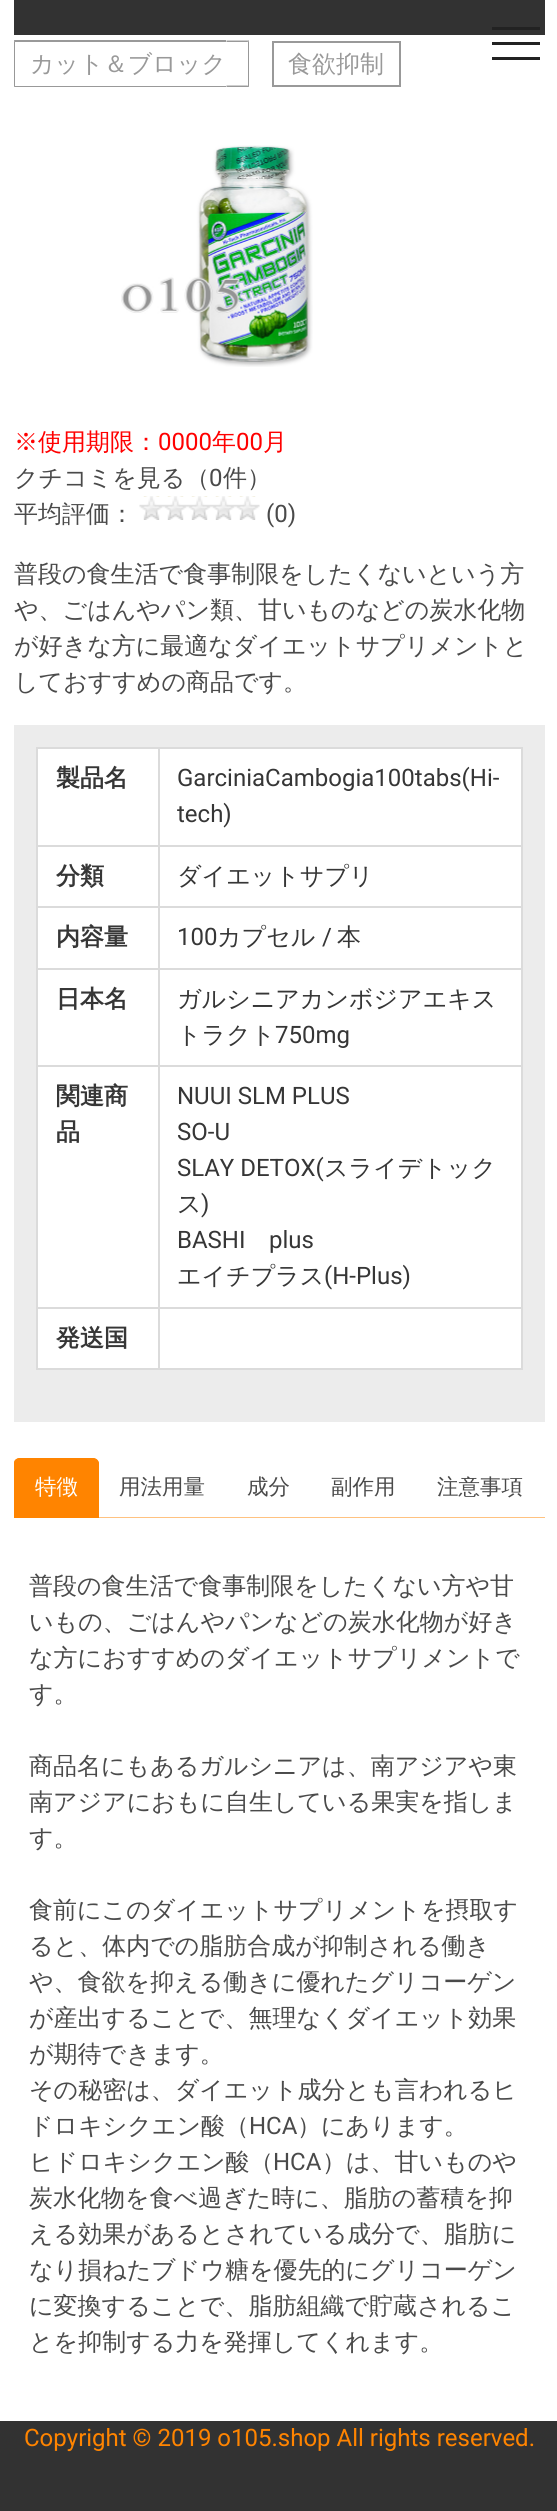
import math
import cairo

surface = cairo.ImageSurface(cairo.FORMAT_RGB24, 557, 2511)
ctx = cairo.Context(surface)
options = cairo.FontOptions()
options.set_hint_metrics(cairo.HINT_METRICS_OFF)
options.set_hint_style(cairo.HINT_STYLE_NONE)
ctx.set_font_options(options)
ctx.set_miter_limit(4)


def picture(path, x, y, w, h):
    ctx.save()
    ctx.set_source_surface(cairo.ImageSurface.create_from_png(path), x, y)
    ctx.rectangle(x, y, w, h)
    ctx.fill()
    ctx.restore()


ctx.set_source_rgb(1, 1, 1)
ctx.paint()
ctx.set_source_rgb(0.133, 0.133, 0.133)
ctx.rectangle(492, 42, 48, 3)
ctx.fill()
ctx.set_source_rgb(0.196, 0.196, 0.196)
ctx.rectangle(14, 0, 531, 35)
ctx.fill()
ctx.set_source_rgb(0.133, 0.133, 0.133)
ctx.rectangle(492, 27, 48, 3)
ctx.fill()
ctx.rectangle(492, 57, 48, 3)
ctx.fill()
ctx.select_font_face("WenQuanYi Zen Hei Medium")
ctx.set_font_size(24)
ctx.set_source_rgb(0.6, 0.6, 0.6)
ctx.move_to(30, 72)
ctx.show_text("カット＆ブロック")
ctx.new_path()
ctx.move_to(14, 40)
ctx.line_to(226, 40)
ctx.line_to(226, 42)
ctx.line_to(15, 42)
ctx.close_path()
ctx.fill()
ctx.new_path()
ctx.move_to(226, 87)
ctx.line_to(14, 87)
ctx.line_to(15, 86)
ctx.line_to(226, 86)
ctx.close_path()
ctx.fill()
ctx.set_source_rgba(0.196, 0.196, 0.196, 0.5)
ctx.new_path()
ctx.move_to(14, 87)
ctx.line_to(14, 40)
ctx.line_to(15, 42)
ctx.line_to(15, 86)
ctx.close_path()
ctx.fill()
ctx.set_source_rgb(0.6, 0.6, 0.6)
ctx.new_path()
ctx.move_to(226.5, 40.5)
ctx.line_to(249, 40.5)
ctx.line_to(247.5, 42)
ctx.line_to(226.5, 42)
ctx.close_path()
ctx.fill()
ctx.set_source_rgba(0.196, 0.196, 0.196, 0.5)
ctx.new_path()
ctx.move_to(249, 40)
ctx.line_to(249, 87)
ctx.line_to(248, 86)
ctx.line_to(248, 42)
ctx.close_path()
ctx.fill()
ctx.new_path()
ctx.move_to(249, 87)
ctx.line_to(226.5, 87)
ctx.line_to(226.5, 85.5)
ctx.line_to(247.5, 85.5)
ctx.close_path()
ctx.fill()
ctx.rectangle(273, 42, 127, 44)
ctx.set_source_rgb(0.6, 0.6, 0.6)
ctx.stroke()
ctx.move_to(288, 72)
ctx.show_text("食欲抑制")
picture("img1.png", 121, 145, 192, 222)
ctx.set_source_rgb(1, 0, 0)
ctx.move_to(14, 450)
ctx.show_text("※使用期限：")
ctx.select_font_face("Roboto")
ctx.move_to(158, 450)
ctx.show_text("0000")
ctx.select_font_face("WenQuanYi Zen Hei Medium")
ctx.move_to(212, 450)
ctx.show_text("年")
ctx.select_font_face("Roboto")
ctx.move_to(236, 450)
ctx.show_text("00")
ctx.select_font_face("WenQuanYi Zen Hei Medium")
ctx.move_to(263, 450)
ctx.show_text("月")
ctx.set_source_rgb(0.29, 0.29, 0.29)
ctx.move_to(14, 486)
ctx.show_text("クチコミを見る（")
ctx.select_font_face("Roboto")
ctx.move_to(209, 486)
ctx.show_text("0")
ctx.select_font_face("WenQuanYi Zen Hei Medium")
ctx.move_to(223, 486)
ctx.show_text("件）")
ctx.move_to(14, 522)
ctx.show_text("平均評価：")
picture("img2.png", 139, 496, 121, 24)
ctx.select_font_face("Roboto")
ctx.move_to(266, 522)
ctx.show_text("(0)")
ctx.select_font_face("WenQuanYi Zen Hei Medium")
ctx.move_to(14, 582)
ctx.show_text("普段の食生活で食事制限をしたくないという方")
ctx.move_to(14, 618)
ctx.show_text("や、ごはんやパン類、甘いものなどの炭水化物")
ctx.move_to(14, 654)
ctx.show_text("が好きな方に最適なダイエットサプリメントと")
ctx.move_to(14, 690)
ctx.show_text("しておすすめの商品です。")
ctx.set_source_rgb(0.922, 0.922, 0.922)
ctx.rectangle(14, 725, 531, 697)
ctx.fill()
ctx.set_source_rgb(1, 1, 1)
ctx.rectangle(38, 749, 483, 619)
ctx.fill()
ctx.set_source_rgb(0.859, 0.859, 0.859)
ctx.rectangle(158, 747, 364, 2)
ctx.fill()
ctx.rectangle(158, 845, 364, 2)
ctx.fill()
ctx.rectangle(158, 906, 364, 2)
ctx.fill()
ctx.rectangle(158, 968, 364, 2)
ctx.fill()
ctx.rectangle(158, 1065, 364, 2)
ctx.fill()
ctx.rectangle(158, 1307, 364, 2)
ctx.fill()
ctx.rectangle(521, 1307, 2, 63)
ctx.fill()
ctx.rectangle(158, 1368, 364, 2)
ctx.fill()
ctx.rectangle(158, 1307, 2, 63)
ctx.fill()
ctx.rectangle(36, 1307, 123, 2)
ctx.fill()
ctx.rectangle(158, 1065, 2, 243)
ctx.fill()
ctx.rectangle(36, 1065, 123, 2)
ctx.fill()
ctx.rectangle(158, 968, 2, 99)
ctx.fill()
ctx.rectangle(36, 968, 123, 2)
ctx.fill()
ctx.rectangle(158, 906, 2, 63)
ctx.fill()
ctx.rectangle(36, 906, 123, 2)
ctx.fill()
ctx.rectangle(158, 845, 2, 63)
ctx.fill()
ctx.rectangle(36, 845, 123, 2)
ctx.fill()
ctx.rectangle(158, 747, 2, 99)
ctx.fill()
ctx.rectangle(36, 747, 123, 2)
ctx.fill()
ctx.rectangle(36, 1368, 123, 2)
ctx.fill()
ctx.rectangle(36, 1307, 2, 63)
ctx.fill()
ctx.rectangle(36, 1065, 2, 243)
ctx.fill()
ctx.rectangle(36, 968, 2, 99)
ctx.fill()
ctx.rectangle(36, 906, 2, 63)
ctx.fill()
ctx.rectangle(36, 845, 2, 63)
ctx.fill()
ctx.rectangle(36, 747, 2, 99)
ctx.fill()
ctx.select_font_face("WenQuanYi Zen Hei", cairo.FONT_SLANT_NORMAL, cairo.FONT_WEIGHT_BOLD)
ctx.set_source_rgb(0.212, 0.212, 0.212)
ctx.move_to(56, 786)
ctx.show_text("製品名")
ctx.set_source_rgb(0.859, 0.859, 0.859)
ctx.rectangle(521, 1065, 2, 243)
ctx.fill()
ctx.rectangle(521, 968, 2, 99)
ctx.fill()
ctx.rectangle(521, 906, 2, 63)
ctx.fill()
ctx.rectangle(521, 845, 2, 63)
ctx.fill()
ctx.rectangle(521, 747, 2, 99)
ctx.fill()
ctx.select_font_face("Roboto")
ctx.set_source_rgb(0.212, 0.212, 0.212)
ctx.move_to(177, 786)
ctx.show_text("GarciniaCambogia100tabs(Hi-")
ctx.move_to(177, 822)
ctx.show_text("tech)")
ctx.select_font_face("WenQuanYi Zen Hei", cairo.FONT_SLANT_NORMAL, cairo.FONT_WEIGHT_BOLD)
ctx.move_to(56, 884)
ctx.show_text("分類")
ctx.select_font_face("WenQuanYi Zen Hei Medium")
ctx.move_to(177, 884)
ctx.show_text("ダイエットサプリ")
ctx.select_font_face("WenQuanYi Zen Hei", cairo.FONT_SLANT_NORMAL, cairo.FONT_WEIGHT_BOLD)
ctx.move_to(56, 945)
ctx.show_text("内容量")
ctx.select_font_face("Roboto")
ctx.move_to(177, 945)
ctx.show_text("100")
ctx.select_font_face("WenQuanYi Zen Hei Medium")
ctx.move_to(217, 945)
ctx.show_text("カプセル")
ctx.select_font_face("Roboto")
ctx.move_to(322, 945)
ctx.show_text("/")
ctx.select_font_face("WenQuanYi Zen Hei Medium")
ctx.move_to(337, 945)
ctx.show_text("本")
ctx.select_font_face("WenQuanYi Zen Hei", cairo.FONT_SLANT_NORMAL, cairo.FONT_WEIGHT_BOLD)
ctx.move_to(56, 1007)
ctx.show_text("日本名")
ctx.select_font_face("WenQuanYi Zen Hei Medium")
ctx.move_to(177, 1007)
ctx.show_text("ガルシニアカンボジアエキス")
ctx.move_to(177, 1043)
ctx.show_text("トラクト")
ctx.select_font_face("Roboto")
ctx.move_to(275, 1043)
ctx.show_text("750mg")
ctx.select_font_face("WenQuanYi Zen Hei", cairo.FONT_SLANT_NORMAL, cairo.FONT_WEIGHT_BOLD)
ctx.move_to(56, 1104)
ctx.show_text("関連商")
ctx.move_to(56, 1140)
ctx.show_text("品")
ctx.select_font_face("Roboto")
ctx.move_to(177, 1104)
ctx.show_text("NUUI SLM PLUS")
ctx.move_to(177, 1140)
ctx.show_text("SO-U")
ctx.move_to(177, 1176)
ctx.show_text("SLAY DETOX(")
ctx.select_font_face("WenQuanYi Zen Hei Medium")
ctx.move_to(324, 1176)
ctx.show_text("スライデトック")
ctx.move_to(177, 1212)
ctx.show_text("ス")
ctx.select_font_face("Roboto")
ctx.move_to(201, 1212)
ctx.show_text(")")
ctx.move_to(177, 1248)
ctx.show_text("BASHI")
ctx.move_to(269, 1248)
ctx.show_text("plus")
ctx.select_font_face("WenQuanYi Zen Hei Medium")
ctx.move_to(177, 1284)
ctx.show_text("エイチプラス")
ctx.select_font_face("Roboto")
ctx.move_to(324, 1284)
ctx.show_text("(H-Plus)")
ctx.select_font_face("WenQuanYi Zen Hei", cairo.FONT_SLANT_NORMAL, cairo.FONT_WEIGHT_BOLD)
ctx.move_to(56, 1346)
ctx.show_text("発送国")
ctx.set_source_rgb(1, 0.761, 0.502)
ctx.rectangle(99, 1517, 446, 1)
ctx.fill()
ctx.set_source_rgb(1, 0.518, 0)
ctx.new_path()
ctx.move_to(20, 1458)
ctx.line_to(93, 1458)
ctx.curve_to(96.5, 1458, 99, 1460.5, 99, 1464)
ctx.line_to(99, 1518)
ctx.line_to(14, 1518)
ctx.line_to(14, 1464)
ctx.curve_to(14, 1460.5, 16.5, 1458, 20, 1458)
ctx.close_path()
ctx.fill()
ctx.new_path()
ctx.move_to(20, 1458)
ctx.curve_to(18, 1458, 16, 1459, 15, 1460)
ctx.line_to(17, 1461)
ctx.line_to(19, 1460)
ctx.line_to(81, 1460)
ctx.curve_to(83, 1460, 92, 1458, 96, 1461)
ctx.line_to(97, 1460)
ctx.curve_to(96, 1459, 94, 1458, 93, 1458)
ctx.close_path()
ctx.fill()
ctx.new_path()
ctx.move_to(99, 1518)
ctx.line_to(99, 1464)
ctx.curve_to(99, 1462, 98, 1461, 97, 1460)
ctx.line_to(96, 1461)
ctx.line_to(98, 1464)
ctx.line_to(98, 1516)
ctx.line_to(97, 1516)
ctx.close_path()
ctx.fill()
ctx.new_path()
ctx.move_to(15, 1460)
ctx.curve_to(14, 1461, 14, 1463, 14, 1464)
ctx.line_to(14, 1518)
ctx.line_to(16, 1516)
ctx.line_to(15, 1516)
ctx.line_to(15, 1463)
ctx.line_to(17, 1461)
ctx.close_path()
ctx.fill()
ctx.select_font_face("WenQuanYi Zen Hei Medium")
ctx.set_font_size(21.5)
ctx.set_source_rgb(1, 1, 1)
ctx.move_to(35, 1494)
ctx.show_text("特徴")
ctx.set_source_rgb(0.29, 0.29, 0.29)
ctx.move_to(119, 1494)
ctx.show_text("用法用量")
ctx.move_to(247, 1494)
ctx.show_text("成分")
ctx.move_to(331, 1494)
ctx.show_text("副作用")
ctx.move_to(437, 1494)
ctx.show_text("注意事項")
ctx.set_font_size(24)
ctx.move_to(29, 1594)
ctx.show_text("普段の食生活で食事制限をしたくない方や甘")
ctx.move_to(29, 1630)
ctx.show_text("いもの、ごはんやパンなどの炭水化物が好き")
ctx.move_to(29, 1666)
ctx.show_text("な方におすすめのダイエットサプリメントで")
ctx.move_to(29, 1702)
ctx.show_text("す。")
ctx.move_to(29, 1774)
ctx.show_text("商品名にもあるガルシニアは、南アジアや東")
ctx.move_to(29, 1810)
ctx.show_text("南アジアにおもに自生している果実を指しま")
ctx.move_to(29, 1846)
ctx.show_text("す。")
ctx.move_to(29, 1918)
ctx.show_text("食前にこのダイエットサプリメントを摂取す")
ctx.move_to(29, 1954)
ctx.show_text("ると、体内での脂肪合成が抑制される働き")
ctx.move_to(29, 1990)
ctx.show_text("や、食欲を抑える働きに優れたグリコーゲン")
ctx.move_to(29, 2026)
ctx.show_text("が産出することで、無理なくダイエット効果")
ctx.move_to(29, 2062)
ctx.show_text("が期待できます。")
ctx.move_to(29, 2098)
ctx.show_text("その秘密は、ダイエット成分とも言われるヒ")
ctx.move_to(29, 2134)
ctx.show_text("ドロキシクエン酸（")
ctx.select_font_face("Roboto")
ctx.move_to(249, 2134)
ctx.show_text("HCA")
ctx.select_font_face("WenQuanYi Zen Hei Medium")
ctx.move_to(297, 2134)
ctx.show_text("）にあります。")
ctx.move_to(29, 2170)
ctx.show_text("ヒドロキシクエン酸（")
ctx.select_font_face("Roboto")
ctx.move_to(273, 2170)
ctx.show_text("HCA")
ctx.select_font_face("WenQuanYi Zen Hei Medium")
ctx.move_to(322, 2170)
ctx.show_text("）は、甘いものや")
ctx.move_to(29, 2206)
ctx.show_text("炭水化物を食べ過ぎた時に、脂肪の蓄積を抑")
ctx.move_to(29, 2242)
ctx.show_text("える効果があるとされている成分で、脂肪に")
ctx.move_to(29, 2278)
ctx.show_text("なり損ねたブドウ糖を優先的にグリコーゲン")
ctx.move_to(29, 2314)
ctx.show_text("に変換することで、脂肪組織で貯蔵されるこ")
ctx.move_to(29, 2350)
ctx.show_text("とを抑制する力を発揮してくれます。")
ctx.set_source_rgb(0.196, 0.196, 0.196)
ctx.rectangle(0, 2421, 557, 90)
ctx.fill()
ctx.select_font_face("Roboto")
ctx.set_source_rgb(1, 0.518, 0)
ctx.move_to(24, 2446)
ctx.show_text("Copyright © 2019 o105.shop All rights reserved.")
surface.write_to_png("page.png")
